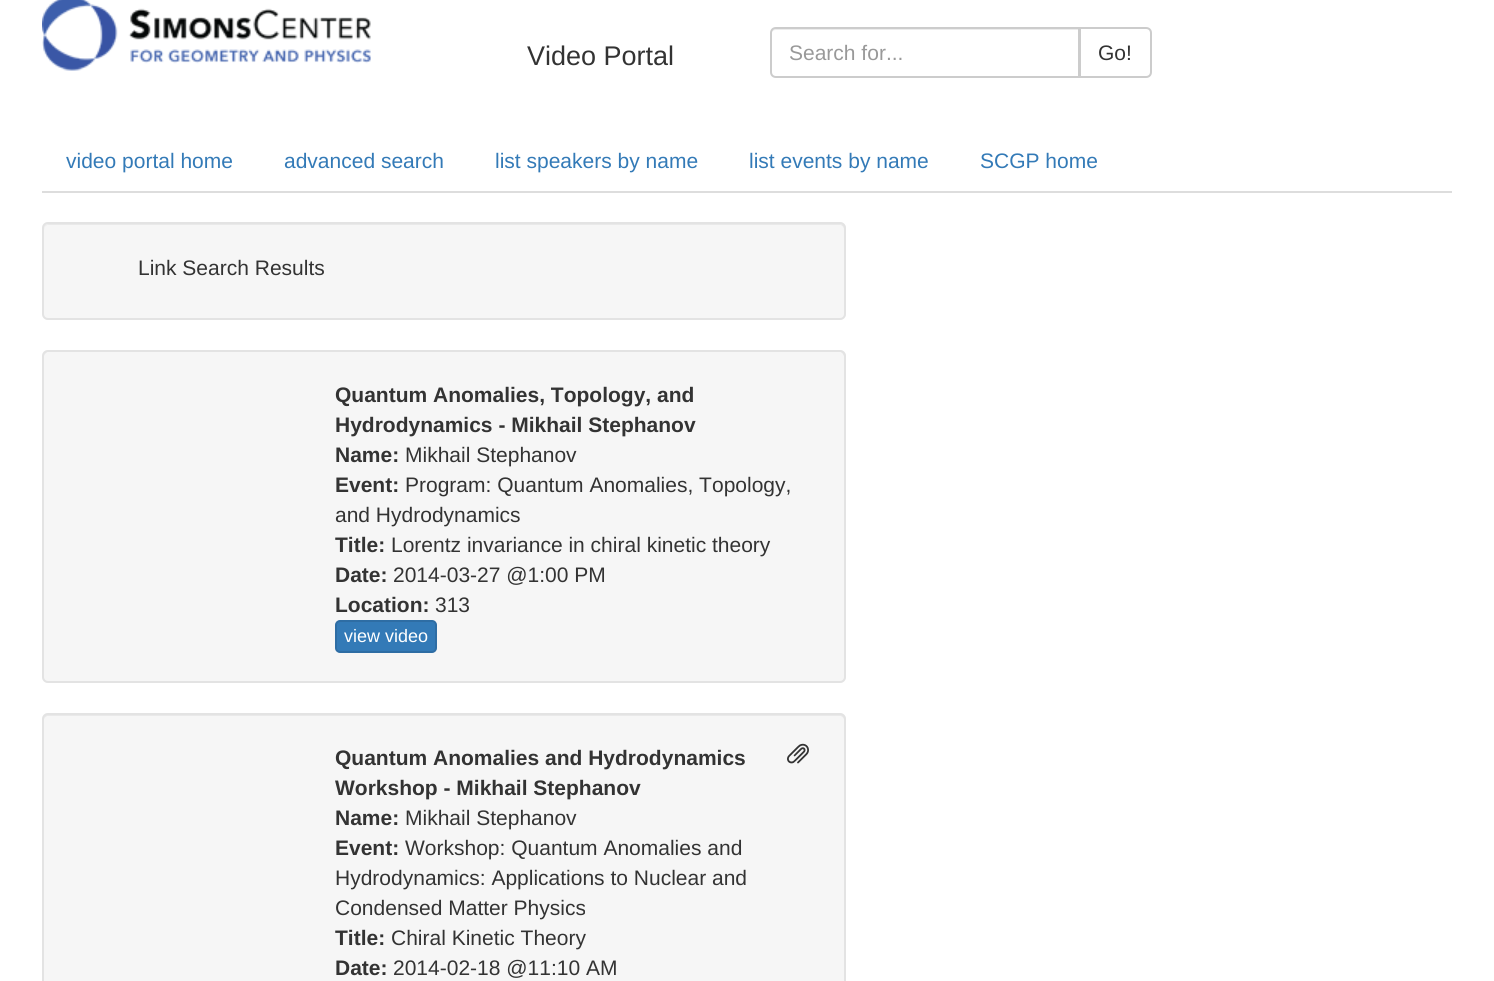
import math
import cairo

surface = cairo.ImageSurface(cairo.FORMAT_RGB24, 1494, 981)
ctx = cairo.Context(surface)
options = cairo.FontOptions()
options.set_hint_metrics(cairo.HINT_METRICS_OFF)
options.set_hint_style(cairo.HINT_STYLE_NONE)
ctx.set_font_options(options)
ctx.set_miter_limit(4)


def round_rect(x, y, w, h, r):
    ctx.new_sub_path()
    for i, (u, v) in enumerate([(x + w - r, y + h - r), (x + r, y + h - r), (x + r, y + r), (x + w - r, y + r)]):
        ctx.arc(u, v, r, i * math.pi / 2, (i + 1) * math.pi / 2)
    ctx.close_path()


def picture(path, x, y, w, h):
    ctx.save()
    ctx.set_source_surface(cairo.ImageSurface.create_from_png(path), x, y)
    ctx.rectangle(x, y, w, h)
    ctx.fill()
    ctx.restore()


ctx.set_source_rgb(1, 1, 1)
ctx.paint()
picture("img1.png", 42, 0, 329, 71)
ctx.select_font_face("Liberation Sans")
ctx.set_font_size(27)
ctx.set_source_rgb(0.2, 0.2, 0.2)
ctx.move_to(527, 65)
ctx.show_text("Video Portal")
ctx.new_path()
ctx.move_to(1080, 28)
ctx.line_to(1146, 28)
ctx.curve_to(1149, 28, 1151, 30, 1151, 33)
ctx.line_to(1151, 72)
ctx.curve_to(1151, 75, 1149, 77, 1146, 77)
ctx.line_to(1080, 77)
ctx.close_path()
ctx.set_source_rgb(0.8, 0.8, 0.8)
ctx.stroke()
ctx.set_source_rgb(1, 1, 1)
ctx.new_path()
ctx.move_to(776, 27)
ctx.line_to(1080, 27)
ctx.line_to(1080, 78)
ctx.line_to(776, 78)
ctx.curve_to(772.5, 78, 770, 75.5, 770, 72)
ctx.line_to(770, 33)
ctx.curve_to(770, 29.5, 772.5, 27, 776, 27)
ctx.close_path()
ctx.fill()
ctx.set_source_rgb(0.925, 0.925, 0.925)
ctx.new_path()
ctx.move_to(776, 30)
ctx.line_to(1078, 30)
ctx.line_to(1078, 77)
ctx.line_to(1079, 77)
ctx.line_to(1079, 29)
ctx.line_to(776, 29)
ctx.curve_to(773, 29, 771, 31, 771, 34)
ctx.curve_to(771, 32, 773, 30, 776, 30)
ctx.close_path()
ctx.fill()
ctx.new_path()
ctx.move_to(776, 28)
ctx.line_to(1079, 28)
ctx.line_to(1079, 77)
ctx.line_to(776, 77)
ctx.curve_to(773, 77, 771, 75, 771, 72)
ctx.line_to(771, 33)
ctx.curve_to(771, 30, 773, 28, 776, 28)
ctx.close_path()
ctx.set_source_rgb(0.8, 0.8, 0.8)
ctx.stroke()
ctx.set_font_size(21)
ctx.set_source_rgb(0.6, 0.6, 0.6)
ctx.move_to(789, 60)
ctx.show_text("Search for...")
ctx.set_source_rgb(0.2, 0.2, 0.2)
ctx.move_to(1098, 60)
ctx.show_text("Go!")
ctx.set_source_rgb(0.867, 0.867, 0.867)
ctx.rectangle(42, 191, 1410, 2)
ctx.fill()
ctx.set_source_rgb(0.2, 0.478, 0.718)
ctx.move_to(66, 168)
ctx.show_text("video portal home")
ctx.move_to(284, 168)
ctx.show_text("advanced search")
ctx.move_to(495, 168)
ctx.show_text("list speakers by name")
ctx.move_to(749, 168)
ctx.show_text("list events by name")
ctx.move_to(980, 168)
ctx.show_text("SCGP home")
ctx.set_source_rgb(0.961, 0.961, 0.961)
round_rect(42, 222, 804, 98, 6)
ctx.fill()
ctx.set_source_rgb(0.914, 0.914, 0.914)
ctx.new_path()
ctx.move_to(48, 225)
ctx.line_to(840, 225)
ctx.curve_to(842, 225, 844, 227, 844, 230)
ctx.line_to(844, 316)
ctx.curve_to(845, 315, 845, 314, 845, 313)
ctx.line_to(845, 229)
ctx.curve_to(845, 226, 843, 224, 840, 224)
ctx.line_to(49, 224)
ctx.curve_to(46, 224, 44, 226, 44, 229)
ctx.line_to(44, 230)
ctx.curve_to(44, 227, 46, 225, 48, 225)
ctx.close_path()
ctx.fill()
round_rect(43, 223, 802, 96, 5)
ctx.set_source_rgb(0.89, 0.89, 0.89)
ctx.stroke()
ctx.set_source_rgb(0.2, 0.2, 0.2)
ctx.move_to(138, 275)
ctx.show_text("Link Search Results")
ctx.set_source_rgb(0.961, 0.961, 0.961)
round_rect(42, 350, 804, 333, 6)
ctx.fill()
ctx.set_source_rgb(0.914, 0.914, 0.914)
ctx.new_path()
ctx.move_to(48, 352)
ctx.line_to(840, 352)
ctx.curve_to(842, 352, 844, 355, 844, 357)
ctx.line_to(844, 679)
ctx.curve_to(845, 678, 845, 677, 845, 676)
ctx.line_to(845, 356)
ctx.curve_to(845, 353, 843, 351, 840, 351)
ctx.line_to(49, 351)
ctx.curve_to(46, 351, 44, 353, 44, 356)
ctx.line_to(44, 357)
ctx.curve_to(44, 355, 46, 352, 48, 352)
ctx.close_path()
ctx.fill()
round_rect(43, 351, 802, 331, 5)
ctx.set_source_rgb(0.89, 0.89, 0.89)
ctx.stroke()
ctx.select_font_face("Liberation Sans", cairo.FONT_SLANT_NORMAL, cairo.FONT_WEIGHT_BOLD)
ctx.set_source_rgb(0.2, 0.2, 0.2)
ctx.move_to(335, 402)
ctx.show_text("Quantum Anomalies, Topology, and")
ctx.move_to(335, 432)
ctx.show_text("Hydrodynamics - Mikhail Stephanov")
ctx.move_to(335, 462)
ctx.show_text("Name:")
ctx.select_font_face("Liberation Sans")
ctx.move_to(405, 462)
ctx.show_text("Mikhail Stephanov")
ctx.select_font_face("Liberation Sans", cairo.FONT_SLANT_NORMAL, cairo.FONT_WEIGHT_BOLD)
ctx.move_to(335, 492)
ctx.show_text("Event:")
ctx.select_font_face("Liberation Sans")
ctx.move_to(405, 492)
ctx.show_text("Program: Quantum Anomalies, Topology,")
ctx.move_to(335, 522)
ctx.show_text("and Hydrodynamics")
ctx.select_font_face("Liberation Sans", cairo.FONT_SLANT_NORMAL, cairo.FONT_WEIGHT_BOLD)
ctx.move_to(335, 552)
ctx.show_text("Title:")
ctx.select_font_face("Liberation Sans")
ctx.move_to(391, 552)
ctx.show_text("Lorentz invariance in chiral kinetic theory")
ctx.select_font_face("Liberation Sans", cairo.FONT_SLANT_NORMAL, cairo.FONT_WEIGHT_BOLD)
ctx.move_to(335, 582)
ctx.show_text("Date:")
ctx.select_font_face("Liberation Sans")
ctx.move_to(393, 582)
ctx.show_text("2014-03-27 @1:00 PM")
ctx.select_font_face("Liberation Sans", cairo.FONT_SLANT_NORMAL, cairo.FONT_WEIGHT_BOLD)
ctx.move_to(335, 612)
ctx.show_text("Location:")
ctx.select_font_face("Liberation Sans")
ctx.move_to(435, 612)
ctx.show_text("313")
ctx.set_source_rgb(0.2, 0.478, 0.718)
round_rect(336, 621, 100, 31, 4)
ctx.fill_preserve()
ctx.set_source_rgb(0.18, 0.427, 0.643)
ctx.stroke()
ctx.set_font_size(18)
ctx.set_source_rgb(1, 1, 1)
ctx.move_to(344, 642)
ctx.show_text("view video")
ctx.set_source_rgb(0.961, 0.961, 0.961)
round_rect(42, 713, 804, 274, 6)
ctx.fill()
ctx.set_source_rgb(0.914, 0.914, 0.914)
ctx.new_path()
ctx.move_to(48, 716)
ctx.line_to(840, 716)
ctx.curve_to(842, 716, 844, 718, 844, 720)
ctx.line_to(844, 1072)
ctx.curve_to(845, 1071, 845, 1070, 845, 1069)
ctx.line_to(845, 719)
ctx.curve_to(845, 716, 843, 714, 840, 714)
ctx.line_to(49, 714)
ctx.curve_to(46, 714, 44, 716, 44, 719)
ctx.line_to(44, 720)
ctx.curve_to(44, 718, 46, 716, 48, 716)
ctx.close_path()
ctx.fill()
round_rect(43, 714, 802, 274, 5)
ctx.set_source_rgb(0.89, 0.89, 0.89)
ctx.stroke()
ctx.select_font_face("Liberation Sans", cairo.FONT_SLANT_NORMAL, cairo.FONT_WEIGHT_BOLD)
ctx.set_font_size(21)
ctx.set_source_rgb(0.2, 0.2, 0.2)
ctx.move_to(335, 765)
ctx.show_text("Quantum Anomalies and Hydrodynamics")
picture("img2.png", 787, 743, 22, 21)
ctx.move_to(335, 795)
ctx.show_text("Workshop - Mikhail Stephanov")
ctx.move_to(335, 825)
ctx.show_text("Name:")
ctx.select_font_face("Liberation Sans")
ctx.move_to(405, 825)
ctx.show_text("Mikhail Stephanov")
ctx.select_font_face("Liberation Sans", cairo.FONT_SLANT_NORMAL, cairo.FONT_WEIGHT_BOLD)
ctx.move_to(335, 855)
ctx.show_text("Event:")
ctx.select_font_face("Liberation Sans")
ctx.move_to(405, 855)
ctx.show_text("Workshop: Quantum Anomalies and")
ctx.move_to(335, 885)
ctx.show_text("Hydrodynamics: Applications to Nuclear and")
ctx.move_to(335, 915)
ctx.show_text("Condensed Matter Physics")
ctx.select_font_face("Liberation Sans", cairo.FONT_SLANT_NORMAL, cairo.FONT_WEIGHT_BOLD)
ctx.move_to(335, 945)
ctx.show_text("Title:")
ctx.select_font_face("Liberation Sans")
ctx.move_to(391, 945)
ctx.show_text("Chiral Kinetic Theory")
ctx.select_font_face("Liberation Sans", cairo.FONT_SLANT_NORMAL, cairo.FONT_WEIGHT_BOLD)
ctx.move_to(335, 975)
ctx.show_text("Date:")
ctx.select_font_face("Liberation Sans")
ctx.move_to(393, 975)
ctx.show_text("2014-02-18 @11:10 AM")
surface.write_to_png("page.png")
